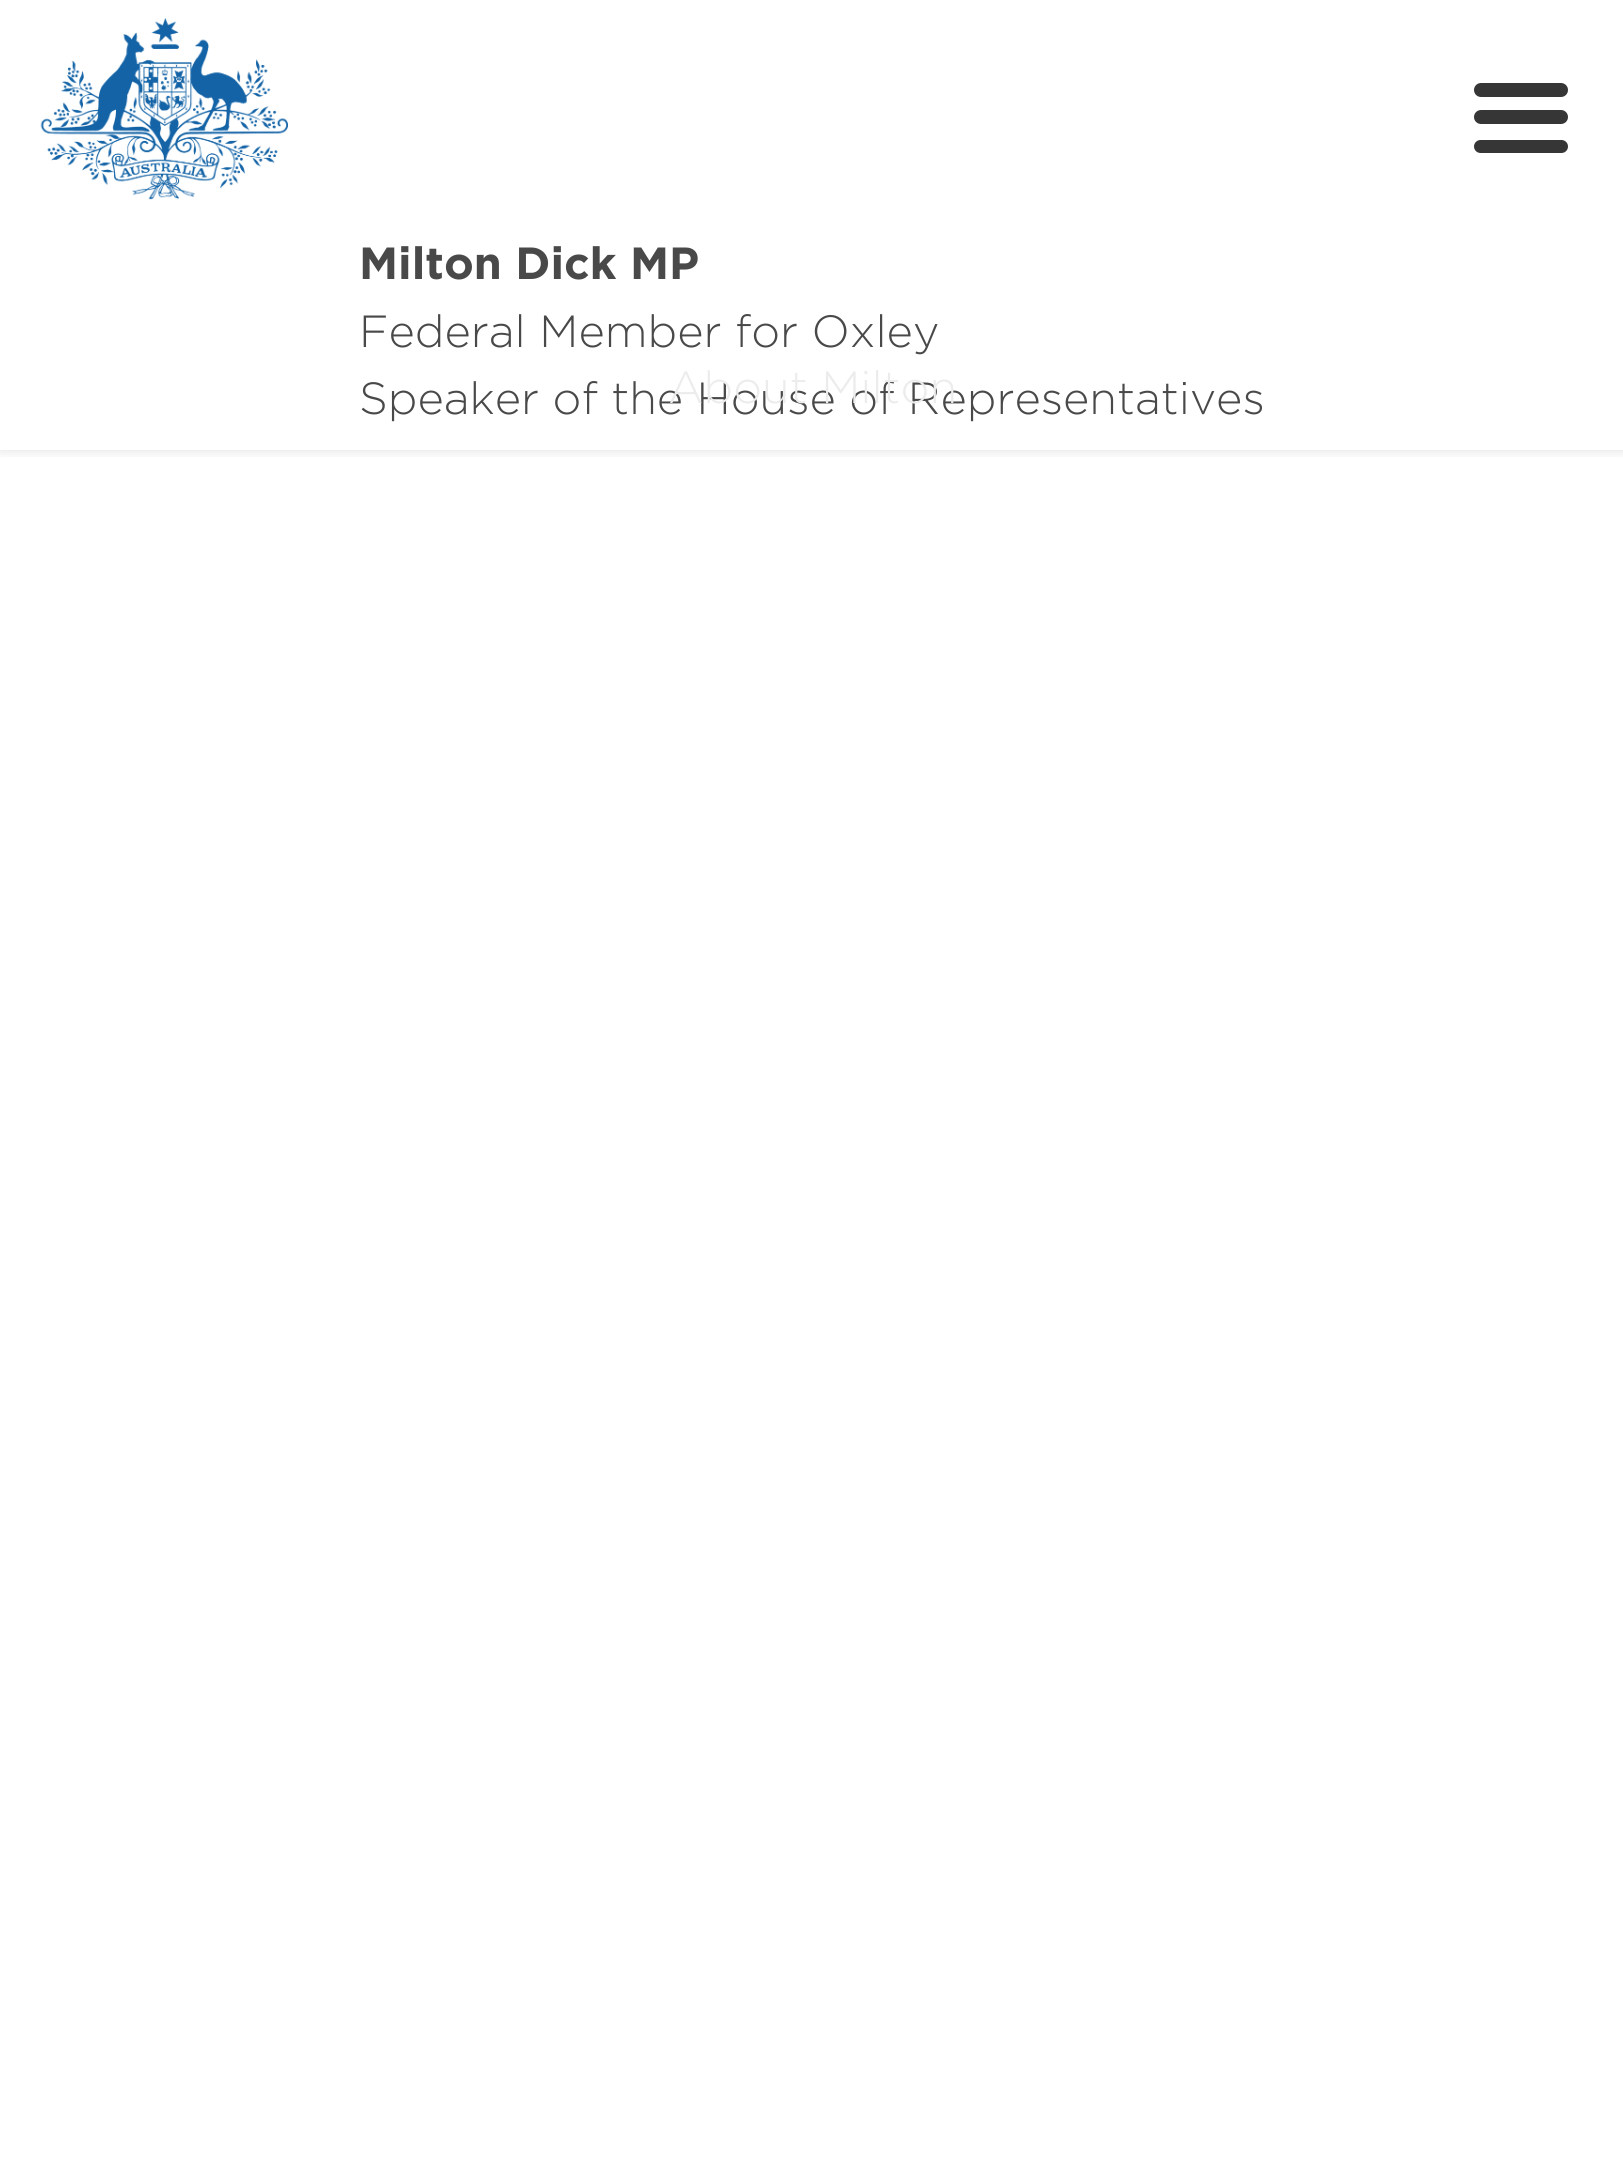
import math
import cairo

surface = cairo.ImageSurface(cairo.FORMAT_RGB24, 1623, 2165)
ctx = cairo.Context(surface)
options = cairo.FontOptions()
options.set_hint_metrics(cairo.HINT_METRICS_OFF)
options.set_hint_style(cairo.HINT_STYLE_NONE)
ctx.set_font_options(options)
ctx.set_miter_limit(4)


def round_rect(x, y, w, h, r):
    ctx.new_sub_path()
    for i, (u, v) in enumerate([(x + w - r, y + h - r), (x + r, y + h - r), (x + r, y + r), (x + w - r, y + r)]):
        ctx.arc(u, v, r, i * math.pi / 2, (i + 1) * math.pi / 2)
    ctx.close_path()


def shadow(x, y, w, h, r, blur, alpha):
    ctx.push_group_with_content(cairo.CONTENT_ALPHA)
    ctx.set_operator(cairo.OPERATOR_SOURCE)
    for i in range(15, -16, -2):
        e = blur * i / 6
        if min(w, h) + 2 * e > 0:
            ctx.set_source_rgba(0, 0, 0, alpha * math.erfc((i - 1) / 8.5) / 2)
            round_rect(x - e, y - e, w + 2 * e, h + 2 * e, max(0, min(r + e + blur * .6, min(w, h) / 2 + e)))
            ctx.fill()
    ctx.mask(ctx.pop_group())


def picture(path, x, y, w, h):
    ctx.save()
    ctx.set_source_surface(cairo.ImageSurface.create_from_png(path), x, y)
    ctx.rectangle(x, y, w, h)
    ctx.fill()
    ctx.restore()


ctx.set_source_rgb(1, 1, 1)
ctx.paint()
ctx.save()
ctx.rectangle(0, 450, 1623, 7)
ctx.clip()
ctx.set_source_rgb(0, 0, 0)
shadow(0, 2, 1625, 450, 0, 5.5, 0.1)
ctx.restore()
picture("img1.png", 40, 18, 248, 182)
ctx.set_source_rgb(0.212, 0.212, 0.212)
round_rect(1474, 83, 94, 14, 7)
ctx.fill()
round_rect(1474, 110, 94, 14, 7)
ctx.fill()
round_rect(1474, 140, 94, 13, 6.5)
ctx.fill()
ctx.select_font_face("Gotham", cairo.FONT_SLANT_NORMAL, cairo.FONT_WEIGHT_BOLD)
ctx.set_font_size(45)
ctx.set_source_rgb(0.286, 0.286, 0.286)
ctx.move_to(359, 279)
ctx.show_text("Milton Dick MP")
ctx.select_font_face("Gotham Light")
ctx.move_to(359, 347)
ctx.show_text("Federal Member for Oxley")
ctx.move_to(359, 414)
ctx.show_text("Speaker of the House of Representatives")
ctx.set_source_rgb(0.925, 0.925, 0.925)
ctx.move_to(668, 403)
ctx.show_text("About Milton")
surface.write_to_png("page.png")
